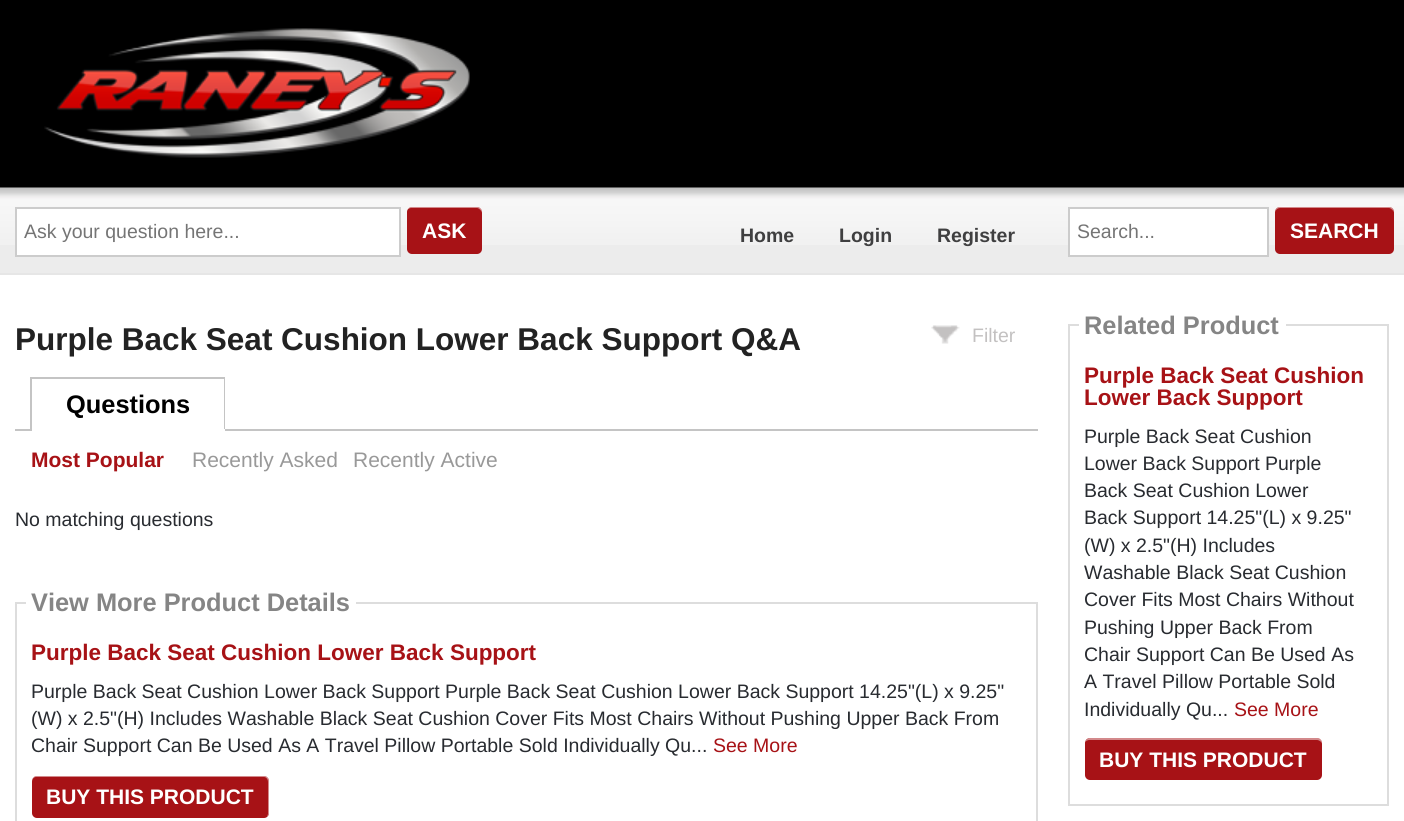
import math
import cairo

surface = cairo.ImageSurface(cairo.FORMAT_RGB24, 1404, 821)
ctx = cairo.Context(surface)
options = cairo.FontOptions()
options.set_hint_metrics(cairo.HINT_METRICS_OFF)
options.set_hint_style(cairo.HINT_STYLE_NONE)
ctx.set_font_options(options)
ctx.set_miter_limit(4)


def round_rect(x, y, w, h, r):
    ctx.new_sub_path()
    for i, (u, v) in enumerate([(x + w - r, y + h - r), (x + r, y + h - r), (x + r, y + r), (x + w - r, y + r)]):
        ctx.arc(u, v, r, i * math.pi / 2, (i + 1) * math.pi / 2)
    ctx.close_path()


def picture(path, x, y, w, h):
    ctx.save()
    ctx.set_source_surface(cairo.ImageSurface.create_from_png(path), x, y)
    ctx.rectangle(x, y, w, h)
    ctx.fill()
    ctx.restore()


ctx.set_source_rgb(1, 1, 1)
ctx.paint()
ctx.set_source_rgb(0, 0, 0)
ctx.rectangle(0, 0, 1404, 188)
ctx.fill()
picture("img1.png", 44, 28, 426, 130)
ctx.set_source_rgb(0.925, 0.925, 0.925)
ctx.rectangle(0, 245, 1404, 28)
ctx.fill()
picture("img2.png", 0, 187, 1404, 58)
ctx.set_source_rgb(0.902, 0.902, 0.902)
ctx.rectangle(0, 273, 1404, 2)
ctx.fill()
ctx.set_source_rgb(1, 1, 1)
ctx.rectangle(16, 208, 384, 48)
ctx.fill_preserve()
ctx.set_source_rgb(0.8, 0.8, 0.8)
ctx.stroke()
ctx.select_font_face("Liberation Sans")
ctx.set_font_size(19.5)
ctx.set_source_rgb(0.459, 0.459, 0.459)
ctx.move_to(24, 238)
ctx.show_text("Ask your question here...")
ctx.set_source_rgb(0.655, 0.071, 0.086)
round_rect(407, 207, 75, 47, 5)
ctx.fill()
ctx.set_source_rgba(1, 1, 1, 0.5)
ctx.new_path()
ctx.move_to(411, 208)
ctx.line_to(477, 208)
ctx.curve_to(479, 208, 482, 211, 482, 213)
ctx.line_to(482, 212)
ctx.curve_to(482, 209, 480, 207, 477, 207)
ctx.line_to(412, 207)
ctx.curve_to(410, 207, 408, 208, 407, 210)
ctx.curve_to(408, 209, 410, 208, 411, 208)
ctx.close_path()
ctx.fill()
ctx.select_font_face("Liberation Sans", cairo.FONT_SLANT_NORMAL, cairo.FONT_WEIGHT_BOLD)
ctx.set_font_size(21)
ctx.set_source_rgb(1, 1, 1)
ctx.move_to(422, 238)
ctx.show_text("ASK")
ctx.set_font_size(19.5)
ctx.set_source_rgb(0.247, 0.247, 0.251)
ctx.move_to(740, 242)
ctx.show_text("Home")
ctx.move_to(839, 242)
ctx.show_text("Login")
ctx.move_to(937, 242)
ctx.show_text("Register")
ctx.set_source_rgb(1, 1, 1)
ctx.rectangle(1069, 208, 199, 48)
ctx.fill_preserve()
ctx.set_source_rgb(0.8, 0.8, 0.8)
ctx.stroke()
ctx.select_font_face("Liberation Sans")
ctx.set_source_rgb(0.459, 0.459, 0.459)
ctx.move_to(1077, 238)
ctx.show_text("Search...")
ctx.set_source_rgb(0.655, 0.071, 0.086)
round_rect(1275, 207, 119, 47, 5)
ctx.fill()
ctx.set_source_rgba(1, 1, 1, 0.5)
ctx.new_path()
ctx.move_to(1280, 208)
ctx.line_to(1389, 208)
ctx.curve_to(1391, 208, 1394, 211, 1394, 213)
ctx.curve_to(1394, 202, 1375, 207, 1371, 207)
ctx.line_to(1298, 207)
ctx.curve_to(1294, 207, 1275, 202, 1275, 213)
ctx.curve_to(1275, 211, 1277, 208, 1280, 208)
ctx.close_path()
ctx.fill()
ctx.select_font_face("Liberation Sans", cairo.FONT_SLANT_NORMAL, cairo.FONT_WEIGHT_BOLD)
ctx.set_font_size(21)
ctx.set_source_rgb(1, 1, 1)
ctx.move_to(1290, 238)
ctx.show_text("SEARCH")
ctx.set_font_size(31.5)
ctx.set_source_rgb(0.133, 0.133, 0.133)
ctx.move_to(15, 350)
ctx.show_text("Purple Back Seat Cushion Lower Back Support Q&A")
picture("img3.png", 931, 325, 29, 19)
ctx.select_font_face("Liberation Sans")
ctx.set_font_size(19.5)
ctx.set_source_rgb(0.765, 0.757, 0.757)
ctx.move_to(972, 342)
ctx.show_text("Filter")
ctx.set_source_rgb(0.769, 0.769, 0.769)
ctx.rectangle(30, 377, 195, 2)
ctx.fill()
ctx.rectangle(224, 377, 1, 54)
ctx.fill()
ctx.set_source_rgb(1, 1, 1)
ctx.rectangle(224, 429, 1, 2)
ctx.fill()
ctx.set_source_rgb(0.769, 0.769, 0.769)
ctx.rectangle(30, 377, 2, 54)
ctx.fill()
ctx.select_font_face("Liberation Sans", cairo.FONT_SLANT_NORMAL, cairo.FONT_WEIGHT_BOLD)
ctx.set_font_size(25.4)
ctx.set_source_rgb(0, 0, 0)
ctx.move_to(66, 413)
ctx.show_text("Questions")
ctx.set_source_rgb(0.769, 0.769, 0.769)
ctx.rectangle(15, 429, 15, 2)
ctx.fill()
ctx.rectangle(225, 429, 813, 2)
ctx.fill()
ctx.set_font_size(21)
ctx.set_source_rgb(0.655, 0.071, 0.086)
ctx.move_to(31, 467)
ctx.show_text("Most Popular")
ctx.select_font_face("Liberation Sans")
ctx.set_source_rgb(0.6, 0.6, 0.6)
ctx.move_to(192, 467)
ctx.show_text("Recently Asked")
ctx.move_to(353, 467)
ctx.show_text("Recently Active")
ctx.set_font_size(19.5)
ctx.set_source_rgb(0.157, 0.169, 0.188)
ctx.move_to(15, 526)
ctx.show_text("No matching questions")
ctx.rectangle(16, 603, 1021, 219)
ctx.set_source_rgb(0.867, 0.867, 0.867)
ctx.stroke()
ctx.set_source_rgb(1, 1, 1)
ctx.rectangle(26, 602, 330, 2)
ctx.fill()
ctx.select_font_face("Liberation Sans", cairo.FONT_SLANT_NORMAL, cairo.FONT_WEIGHT_BOLD)
ctx.set_font_size(25.4)
ctx.set_source_rgb(0.522, 0.522, 0.522)
ctx.move_to(31, 611)
ctx.show_text("View More Product Details")
ctx.set_font_size(22.5)
ctx.set_source_rgb(0.655, 0.071, 0.086)
ctx.move_to(31, 660)
ctx.show_text("Purple Back Seat Cushion Lower Back Support")
ctx.select_font_face("Liberation Sans")
ctx.set_font_size(19.5)
ctx.set_source_rgb(0.157, 0.169, 0.188)
ctx.move_to(31, 698)
ctx.show_text("Purple Back Seat Cushion Lower Back Support Purple Back Seat Cushion Lower Back Support 14.25\"(L) x 9.25\"")
ctx.move_to(31, 725)
ctx.show_text("(W) x 2.5\"(H) Includes Washable Black Seat Cushion Cover Fits Most Chairs Without Pushing Upper Back From")
ctx.move_to(31, 752)
ctx.show_text("Chair Support Can Be Used As A Travel Pillow Portable Sold Individually Qu...")
ctx.set_source_rgb(0.655, 0.071, 0.086)
ctx.move_to(713, 752)
ctx.show_text("See More")
round_rect(32, 776, 237, 42, 5)
ctx.fill()
ctx.set_source_rgba(1, 1, 1, 0.5)
ctx.new_path()
ctx.move_to(36, 777)
ctx.line_to(264, 777)
ctx.curve_to(266, 777, 268, 779, 268, 782)
ctx.line_to(268, 814)
ctx.line_to(267, 817)
ctx.curve_to(268, 816, 269, 814, 269, 813)
ctx.line_to(269, 781)
ctx.curve_to(269, 778, 267, 776, 264, 776)
ctx.line_to(37, 776)
ctx.curve_to(34, 776, 32, 778, 32, 781)
ctx.line_to(32, 782)
ctx.curve_to(32, 779, 34, 777, 36, 777)
ctx.close_path()
ctx.fill()
ctx.select_font_face("Liberation Sans", cairo.FONT_SLANT_NORMAL, cairo.FONT_WEIGHT_BOLD)
ctx.set_font_size(21)
ctx.set_source_rgb(1, 1, 1)
ctx.move_to(46, 804)
ctx.show_text("BUY THIS PRODUCT")
ctx.rectangle(1069, 325, 319, 480)
ctx.set_source_rgb(0.867, 0.867, 0.867)
ctx.stroke()
ctx.set_source_rgb(1, 1, 1)
ctx.rectangle(1079, 324, 207, 2)
ctx.fill()
ctx.set_font_size(25.4)
ctx.set_source_rgb(0.522, 0.522, 0.522)
ctx.move_to(1084, 334)
ctx.show_text("Related Product")
ctx.set_font_size(22.5)
ctx.set_source_rgb(0.655, 0.071, 0.086)
ctx.move_to(1084, 383)
ctx.show_text("Purple Back Seat Cushion")
ctx.move_to(1084, 405)
ctx.show_text("Lower Back Support")
ctx.select_font_face("Liberation Sans")
ctx.set_font_size(19.5)
ctx.set_source_rgb(0.157, 0.169, 0.188)
ctx.move_to(1084, 443)
ctx.show_text("Purple Back Seat Cushion")
ctx.move_to(1084, 470)
ctx.show_text("Lower Back Support Purple")
ctx.move_to(1084, 497)
ctx.show_text("Back Seat Cushion Lower")
ctx.move_to(1084, 524)
ctx.show_text("Back Support 14.25\"(L) x 9.25\"")
ctx.move_to(1084, 552)
ctx.show_text("(W) x 2.5\"(H) Includes")
ctx.move_to(1084, 579)
ctx.show_text("Washable Black Seat Cushion")
ctx.move_to(1084, 606)
ctx.show_text("Cover Fits Most Chairs Without")
ctx.move_to(1084, 634)
ctx.show_text("Pushing Upper Back From")
ctx.move_to(1084, 661)
ctx.show_text("Chair Support Can Be Used As")
ctx.move_to(1084, 688)
ctx.show_text("A Travel Pillow Portable Sold")
ctx.move_to(1084, 716)
ctx.show_text("Individually Qu...")
ctx.set_source_rgb(0.655, 0.071, 0.086)
ctx.move_to(1234, 716)
ctx.show_text("See More")
round_rect(1085, 738, 237, 42, 5)
ctx.fill()
ctx.set_source_rgba(1, 1, 1, 0.5)
ctx.new_path()
ctx.move_to(1089, 740)
ctx.line_to(1317, 740)
ctx.curve_to(1319, 740, 1322, 742, 1322, 744)
ctx.line_to(1322, 743)
ctx.curve_to(1322, 740, 1320, 738, 1317, 738)
ctx.line_to(1090, 738)
ctx.curve_to(1088, 738, 1086, 740, 1085, 742)
ctx.curve_to(1086, 741, 1088, 740, 1089, 740)
ctx.close_path()
ctx.fill()
ctx.select_font_face("Liberation Sans", cairo.FONT_SLANT_NORMAL, cairo.FONT_WEIGHT_BOLD)
ctx.set_font_size(21)
ctx.set_source_rgb(1, 1, 1)
ctx.move_to(1099, 767)
ctx.show_text("BUY THIS PRODUCT")
surface.write_to_png("page.png")
